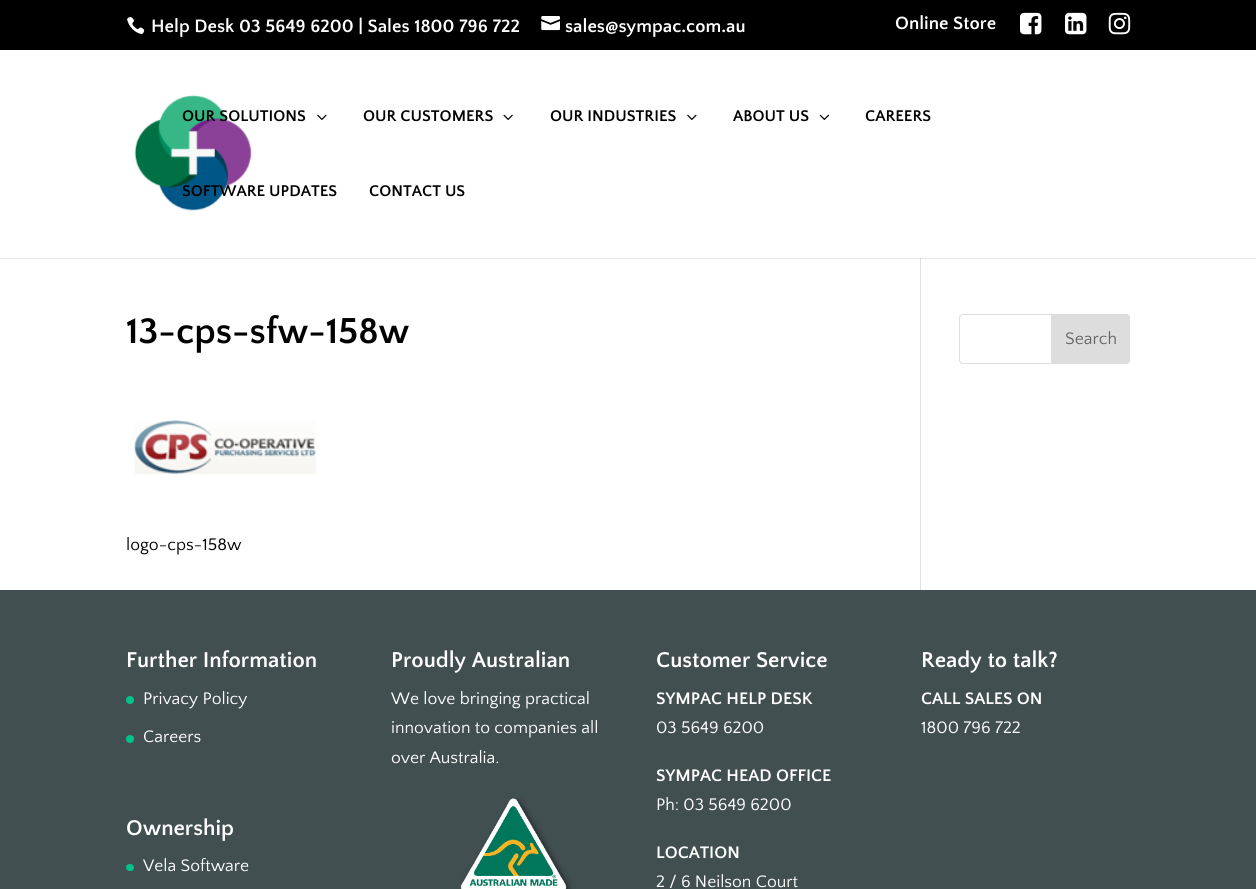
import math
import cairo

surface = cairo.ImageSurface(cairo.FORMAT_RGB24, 1256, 889)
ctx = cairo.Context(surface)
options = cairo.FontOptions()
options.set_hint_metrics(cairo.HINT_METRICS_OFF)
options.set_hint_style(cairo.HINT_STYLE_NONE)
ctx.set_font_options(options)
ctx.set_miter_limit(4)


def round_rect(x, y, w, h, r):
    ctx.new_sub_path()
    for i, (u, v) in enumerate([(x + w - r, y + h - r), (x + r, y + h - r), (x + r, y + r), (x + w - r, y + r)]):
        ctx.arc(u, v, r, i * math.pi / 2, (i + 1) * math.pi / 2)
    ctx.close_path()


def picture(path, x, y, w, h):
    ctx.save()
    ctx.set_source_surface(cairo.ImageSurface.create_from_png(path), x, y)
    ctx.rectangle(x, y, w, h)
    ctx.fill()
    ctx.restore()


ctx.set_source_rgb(1, 1, 1)
ctx.paint()
ctx.set_source_rgb(0, 0, 0)
ctx.rectangle(0, 0, 1256, 50)
ctx.fill()
picture("img1.png", 127, 17, 18, 18)
ctx.select_font_face("Quattrocento Sans", cairo.FONT_SLANT_NORMAL, cairo.FONT_WEIGHT_BOLD)
ctx.set_font_size(18.75)
ctx.set_source_rgb(1, 1, 1)
ctx.move_to(151, 32)
ctx.show_text("Help Desk 03 5649 6200 | Sales 1800 796 722")
picture("img2.png", 541, 16, 19, 15)
ctx.move_to(565, 32)
ctx.show_text("sales@sympac.com.au")
ctx.move_to(895, 29)
ctx.show_text("Online Store")
picture("img3.png", 1020, 12, 22, 23)
picture("img4.png", 1065, 12, 22, 23)
picture("img5.png", 1108, 12, 23, 23)
picture("img6.png", 134, 95, 118, 116)
ctx.set_font_size(16.25)
ctx.set_source_rgb(0, 0, 0)
ctx.move_to(182, 121)
ctx.show_text("OUR SOLUTIONS")
picture("img7.png", 317, 114, 10, 6)
ctx.move_to(363, 121)
ctx.show_text("OUR CUSTOMERS")
picture("img8.png", 503, 114, 10, 6)
ctx.move_to(550, 121)
ctx.show_text("OUR INDUSTRIES")
picture("img7.png", 687, 114, 10, 6)
ctx.move_to(733, 121)
ctx.show_text("ABOUT US")
picture("img9.png", 819, 114, 10, 6)
ctx.move_to(865, 121)
ctx.show_text("CAREERS")
ctx.move_to(182, 196)
ctx.show_text("SOFTWARE UPDATES")
ctx.move_to(369, 196)
ctx.show_text("CONTACT US")
ctx.set_source_rgb(0.902, 0.902, 0.902)
ctx.rectangle(0, 258, 1256, 1)
ctx.fill()
ctx.set_source_rgb(0.886, 0.886, 0.886)
ctx.rectangle(920, 259, 1, 331)
ctx.fill()
ctx.set_source_rgb(0.796, 0.796, 0.796)
ctx.rectangle(920, 258, 1, 1)
ctx.fill()
ctx.set_font_size(37.5)
ctx.set_source_rgb(0, 0, 0)
ctx.move_to(126, 343)
ctx.show_text("13-cps-sfw-158w")
picture("img10.png", 133, 420, 184, 55)
ctx.select_font_face("Quattrocento Sans")
ctx.set_font_size(17.5)
ctx.move_to(126, 550)
ctx.show_text("logo-cps-158w")
round_rect(959.5, 314.5, 170, 49, 3.5)
ctx.set_source_rgb(0.867, 0.867, 0.867)
ctx.set_line_width(1)
ctx.stroke()
ctx.new_path()
ctx.move_to(1051.5, 314.5)
ctx.line_to(1126, 314.5)
ctx.curve_to(1128, 314.5, 1129.5, 316, 1129.5, 318)
ctx.line_to(1129.5, 360)
ctx.curve_to(1129.5, 362, 1128, 363.5, 1126, 363.5)
ctx.line_to(1051.5, 363.5)
ctx.close_path()
ctx.fill_preserve()
ctx.stroke()
ctx.set_source_rgb(0.4, 0.4, 0.4)
ctx.move_to(1065, 344)
ctx.show_text("Search")
ctx.set_source_rgb(0.259, 0.31, 0.318)
ctx.rectangle(0, 590, 1256, 299)
ctx.fill()
ctx.select_font_face("Quattrocento Sans", cairo.FONT_SLANT_NORMAL, cairo.FONT_WEIGHT_BOLD)
ctx.set_font_size(22.5)
ctx.set_source_rgb(1, 1, 1)
ctx.move_to(126, 667)
ctx.show_text("Further Information")
ctx.set_source_rgb(0, 0.765, 0.537)
ctx.new_path()
ctx.arc(130, 700, 4, 0, 2 * math.pi)
ctx.fill()
ctx.select_font_face("Quattrocento Sans")
ctx.set_font_size(17.5)
ctx.set_source_rgb(1, 1, 1)
ctx.move_to(143, 704)
ctx.show_text("Privacy Policy")
ctx.set_source_rgb(0, 0.765, 0.537)
ctx.new_path()
ctx.arc(130, 739, 4, 0, 2 * math.pi)
ctx.fill()
ctx.set_source_rgb(1, 1, 1)
ctx.move_to(143, 742)
ctx.show_text("Careers")
ctx.select_font_face("Quattrocento Sans", cairo.FONT_SLANT_NORMAL, cairo.FONT_WEIGHT_BOLD)
ctx.set_font_size(22.5)
ctx.move_to(126, 835)
ctx.show_text("Ownership")
ctx.set_source_rgb(0, 0.765, 0.537)
round_rect(126, 864, 8, 7, 3.5)
ctx.fill()
ctx.select_font_face("Quattrocento Sans")
ctx.set_font_size(17.5)
ctx.set_source_rgb(1, 1, 1)
ctx.move_to(143, 871)
ctx.show_text("Vela Software")
ctx.select_font_face("Quattrocento Sans", cairo.FONT_SLANT_NORMAL, cairo.FONT_WEIGHT_BOLD)
ctx.set_font_size(22.5)
ctx.move_to(391, 667)
ctx.show_text("Proudly Australian")
ctx.select_font_face("Quattrocento Sans")
ctx.set_font_size(17.5)
ctx.move_to(391, 704)
ctx.show_text("We love bringing practical")
ctx.move_to(391, 733)
ctx.show_text("innovation to companies all")
ctx.move_to(391, 763)
ctx.show_text("over Australia.")
picture("img11.png", 460, 797, 113, 92)
ctx.select_font_face("Quattrocento Sans", cairo.FONT_SLANT_NORMAL, cairo.FONT_WEIGHT_BOLD)
ctx.set_font_size(22.5)
ctx.move_to(656, 667)
ctx.show_text("Customer Service")
ctx.set_font_size(17.5)
ctx.move_to(656, 704)
ctx.show_text("SYMPAC HELP DESK")
ctx.select_font_face("Quattrocento Sans")
ctx.move_to(656, 733)
ctx.show_text("03 5649 6200")
ctx.select_font_face("Quattrocento Sans", cairo.FONT_SLANT_NORMAL, cairo.FONT_WEIGHT_BOLD)
ctx.move_to(656, 781)
ctx.show_text("SYMPAC HEAD OFFICE")
ctx.select_font_face("Quattrocento Sans")
ctx.move_to(656, 810)
ctx.show_text("Ph: 03 5649 6200")
ctx.select_font_face("Quattrocento Sans", cairo.FONT_SLANT_NORMAL, cairo.FONT_WEIGHT_BOLD)
ctx.move_to(656, 858)
ctx.show_text("LOCATION")
ctx.select_font_face("Quattrocento Sans")
ctx.move_to(656, 887)
ctx.show_text("2 / 6 Neilson Court")
ctx.select_font_face("Quattrocento Sans", cairo.FONT_SLANT_NORMAL, cairo.FONT_WEIGHT_BOLD)
ctx.set_font_size(22.5)
ctx.move_to(921, 667)
ctx.show_text("Ready to talk?")
ctx.set_font_size(17.5)
ctx.move_to(921, 704)
ctx.show_text("CALL SALES ON")
ctx.select_font_face("Quattrocento Sans")
ctx.move_to(921, 733)
ctx.show_text("1800 796 722")
surface.write_to_png("page.png")
